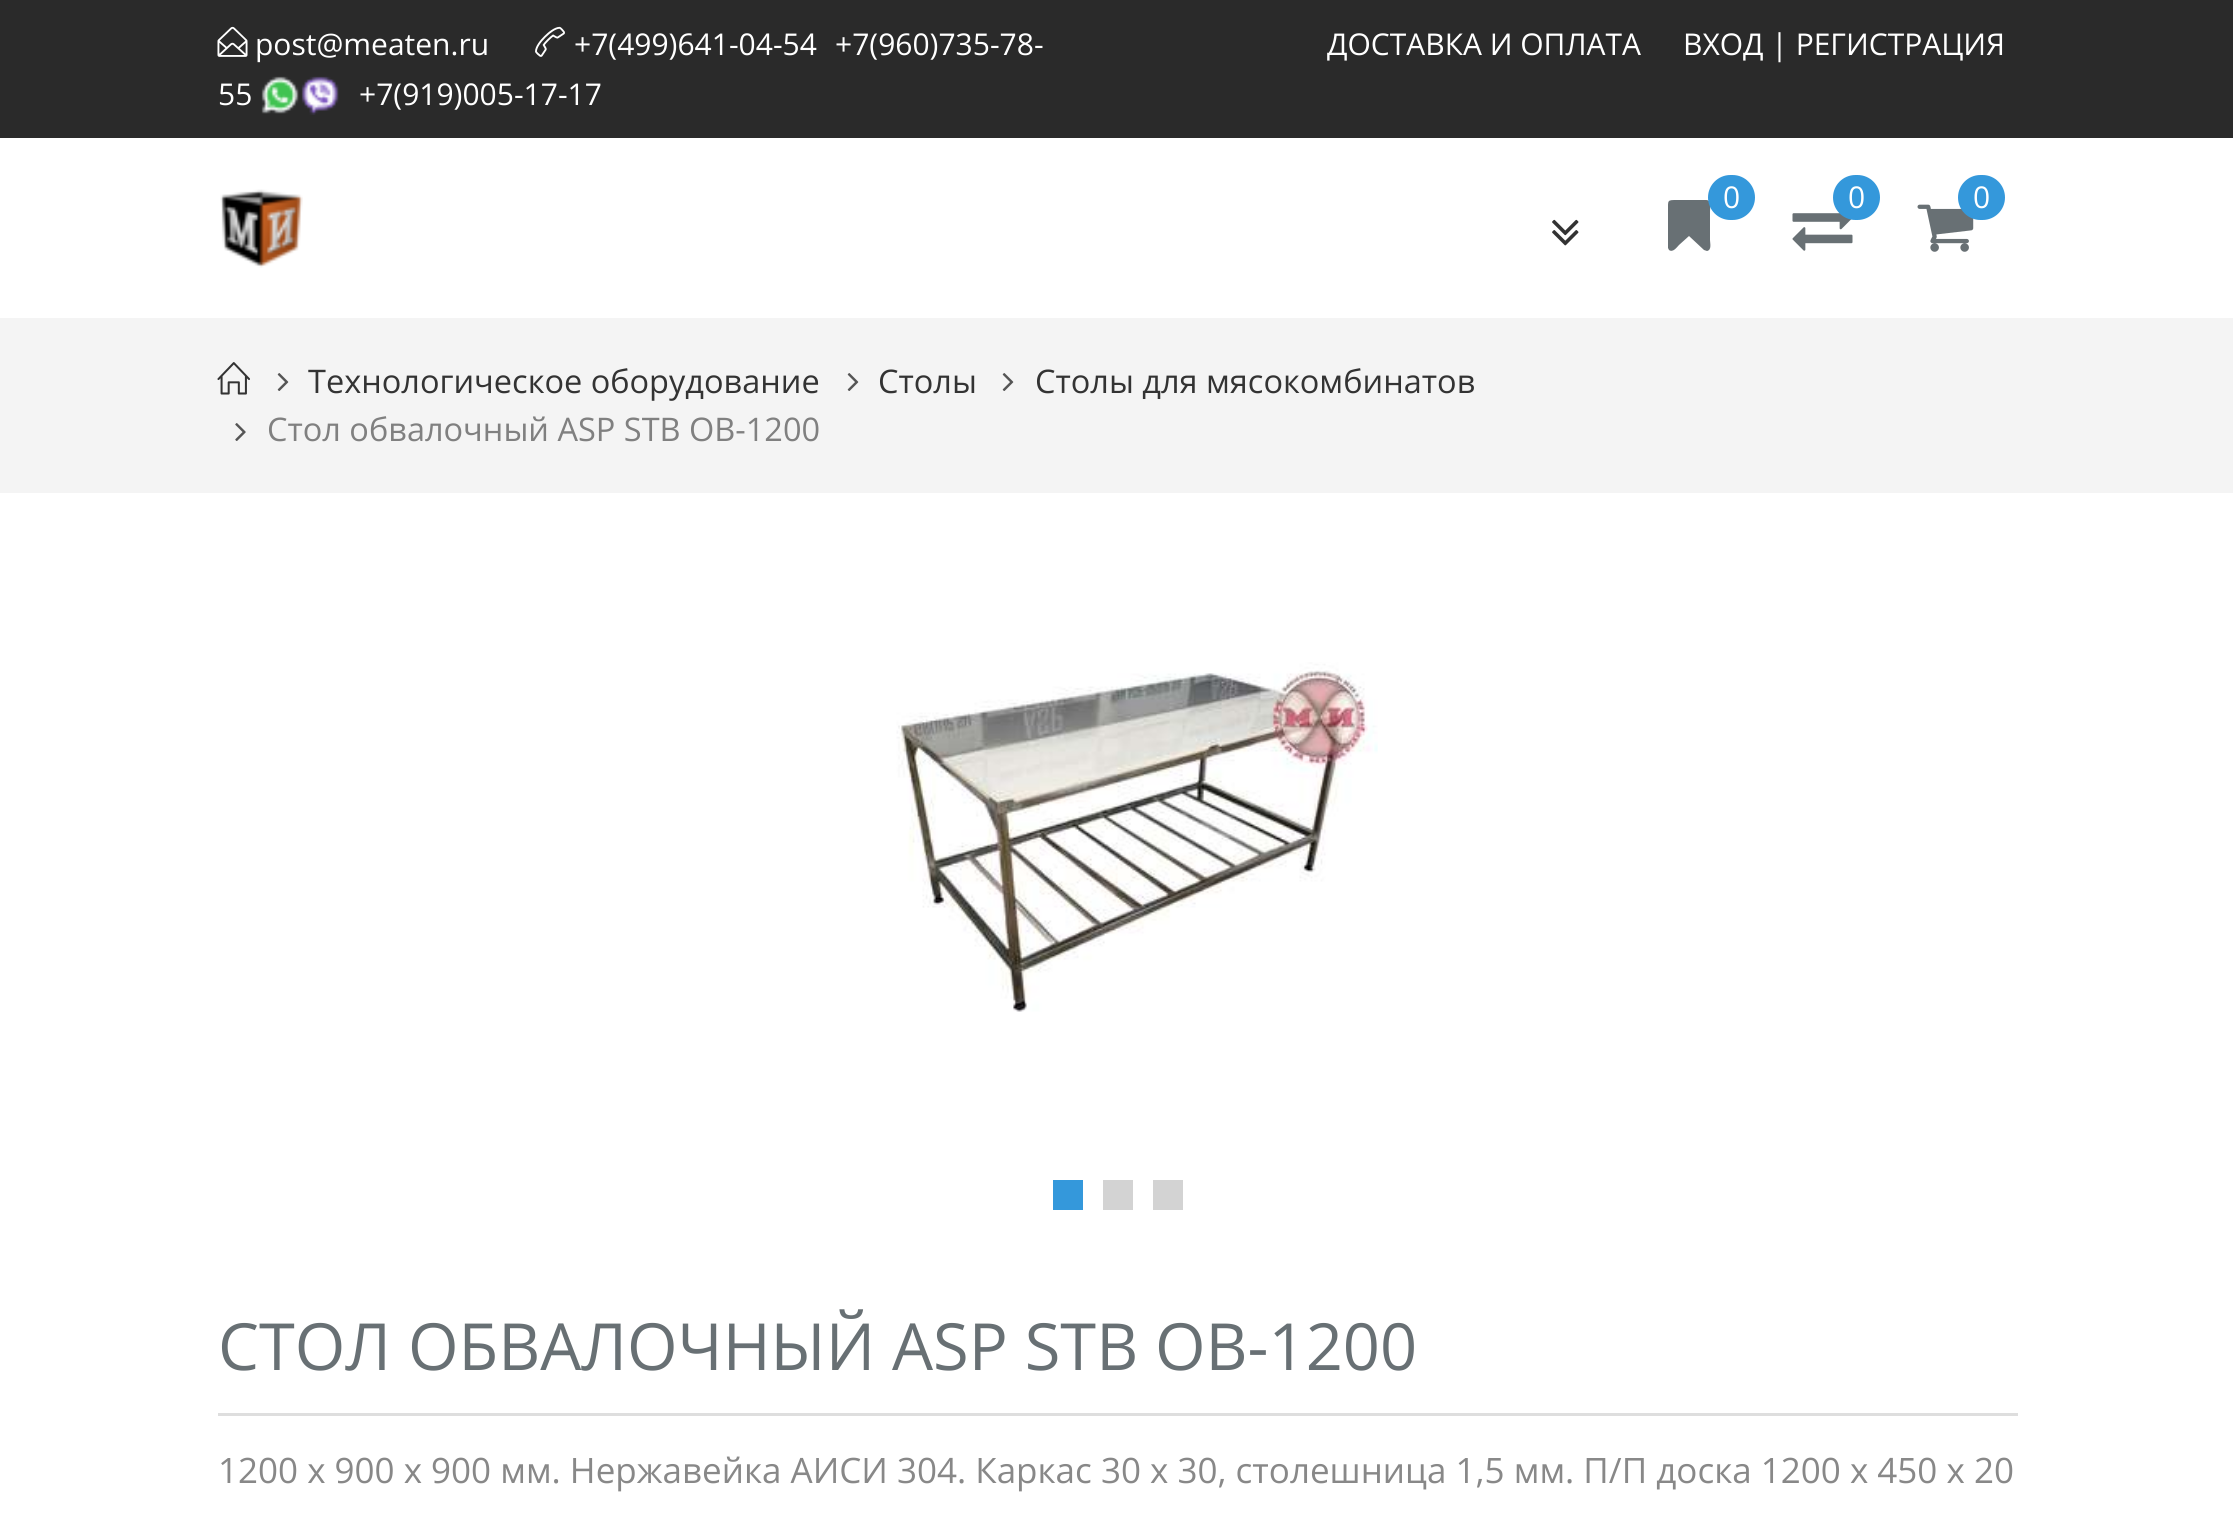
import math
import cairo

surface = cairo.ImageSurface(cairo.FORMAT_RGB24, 2233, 1522)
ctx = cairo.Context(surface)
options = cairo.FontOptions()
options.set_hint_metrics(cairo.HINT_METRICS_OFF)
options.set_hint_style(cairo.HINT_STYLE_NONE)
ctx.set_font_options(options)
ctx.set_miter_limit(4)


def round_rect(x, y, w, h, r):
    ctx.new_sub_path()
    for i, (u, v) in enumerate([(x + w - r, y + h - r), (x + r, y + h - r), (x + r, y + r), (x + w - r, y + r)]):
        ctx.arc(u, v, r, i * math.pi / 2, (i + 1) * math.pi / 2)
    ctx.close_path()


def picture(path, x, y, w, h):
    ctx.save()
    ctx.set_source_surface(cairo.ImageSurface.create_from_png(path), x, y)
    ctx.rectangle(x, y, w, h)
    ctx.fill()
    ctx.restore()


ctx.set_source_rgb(1, 1, 1)
ctx.paint()
ctx.set_source_rgb(0.165, 0.165, 0.165)
ctx.rectangle(0, 0, 2233, 138)
ctx.fill()
picture("img1.png", 217, 26, 31, 31)
picture("img2.png", 535, 26, 30, 31)
ctx.select_font_face("Open Sans")
ctx.set_font_size(30)
ctx.set_source_rgb(1, 1, 1)
ctx.move_to(574, 55)
ctx.show_text("+7(499)641-04-54")
ctx.move_to(835, 55)
ctx.show_text("+7(960)735-78-")
ctx.move_to(218, 105)
ctx.show_text("55")
picture("img3.png", 261, 76, 38, 38)
picture("img4.png", 301, 76, 38, 39)
ctx.move_to(359, 105)
ctx.show_text("+7(919)005-17-17")
ctx.move_to(255, 55)
ctx.show_text("post@meaten.ru")
ctx.move_to(1327, 55)
ctx.show_text("ДОСТАВКА И ОПЛАТА")
ctx.move_to(1683, 55)
ctx.show_text("ВХОД | РЕГИСТРАЦИЯ")
picture("img5.png", 220, 189, 83, 79)
picture("img6.png", 1552, 219, 27, 27)
ctx.set_source_rgb(0.408, 0.439, 0.455)
ctx.new_path()
ctx.move_to(1706, 200)
ctx.curve_to(1712, 200, 1710, 208, 1710, 211)
ctx.line_to(1710, 240)
ctx.curve_to(1710, 243, 1712, 250, 1707, 251)
ctx.line_to(1704, 250)
ctx.line_to(1689, 236)
ctx.line_to(1679, 245)
ctx.curve_to(1677, 247, 1673, 253, 1669, 250)
ctx.line_to(1668, 248)
ctx.line_to(1668, 211)
ctx.curve_to(1668, 200, 1667, 200, 1677, 200)
ctx.close_path()
ctx.fill()
ctx.set_source_rgb(0.204, 0.596, 0.859)
round_rect(1708, 175, 47, 45, 22.5)
ctx.fill()
ctx.set_source_rgb(1, 1, 1)
ctx.move_to(1723, 208)
ctx.show_text("0")
picture("img7.png", 1792, 212, 61, 39)
ctx.set_source_rgb(0.204, 0.596, 0.859)
round_rect(1833, 175, 47, 45, 22.5)
ctx.fill()
ctx.set_source_rgb(1, 1, 1)
ctx.move_to(1848, 208)
ctx.show_text("0")
picture("img8.png", 1917, 204, 57, 48)
ctx.set_source_rgb(0.204, 0.596, 0.859)
round_rect(1958, 175, 47, 45, 22.5)
ctx.fill()
ctx.set_source_rgb(1, 1, 1)
ctx.move_to(1973, 208)
ctx.show_text("0")
ctx.set_source_rgb(0.957, 0.957, 0.957)
ctx.rectangle(0, 318, 2233, 175)
ctx.fill()
picture("img9.png", 217, 362, 33, 33)
picture("img10.png", 277, 373, 12, 18)
ctx.set_font_size(32.5)
ctx.set_source_rgb(0.2, 0.2, 0.2)
ctx.move_to(308, 393)
ctx.show_text("Технологическое оборудование")
picture("img10.png", 847, 373, 12, 18)
ctx.move_to(878, 393)
ctx.show_text("Столы")
picture("img10.png", 1002, 373, 12, 18)
ctx.move_to(1035, 393)
ctx.show_text("Столы для мясокомбинатов")
picture("img11.png", 235, 423, 11, 18)
ctx.set_source_rgb(0.502, 0.502, 0.502)
ctx.move_to(267, 441)
ctx.show_text("Стол обвалочный ASP STB OB-1200")
picture("img12.png", 896, 662, 482, 350)
ctx.set_source_rgb(0.204, 0.596, 0.859)
ctx.rectangle(1053, 1180, 30, 30)
ctx.fill()
ctx.set_source_rgb(0.827, 0.827, 0.827)
ctx.rectangle(1103, 1180, 30, 30)
ctx.fill()
ctx.rectangle(1153, 1180, 30, 30)
ctx.fill()
ctx.set_source_rgb(0.871, 0.871, 0.871)
ctx.rectangle(218, 1413, 1800, 3)
ctx.fill()
ctx.set_font_size(65)
ctx.set_source_rgb(0.408, 0.439, 0.455)
ctx.move_to(218, 1370)
ctx.show_text("СТОЛ ОБВАЛОЧНЫЙ ASP STB OB-1200")
ctx.set_font_size(35)
ctx.set_source_rgb(0.533, 0.533, 0.533)
ctx.move_to(218, 1483)
ctx.show_text("1200 х 900 х 900 мм. Нержавейка АИСИ 304. Каркас 30 х 30, столешница 1,5 мм. П/П доска 1200 х 450 х 20")
surface.write_to_png("page.png")
